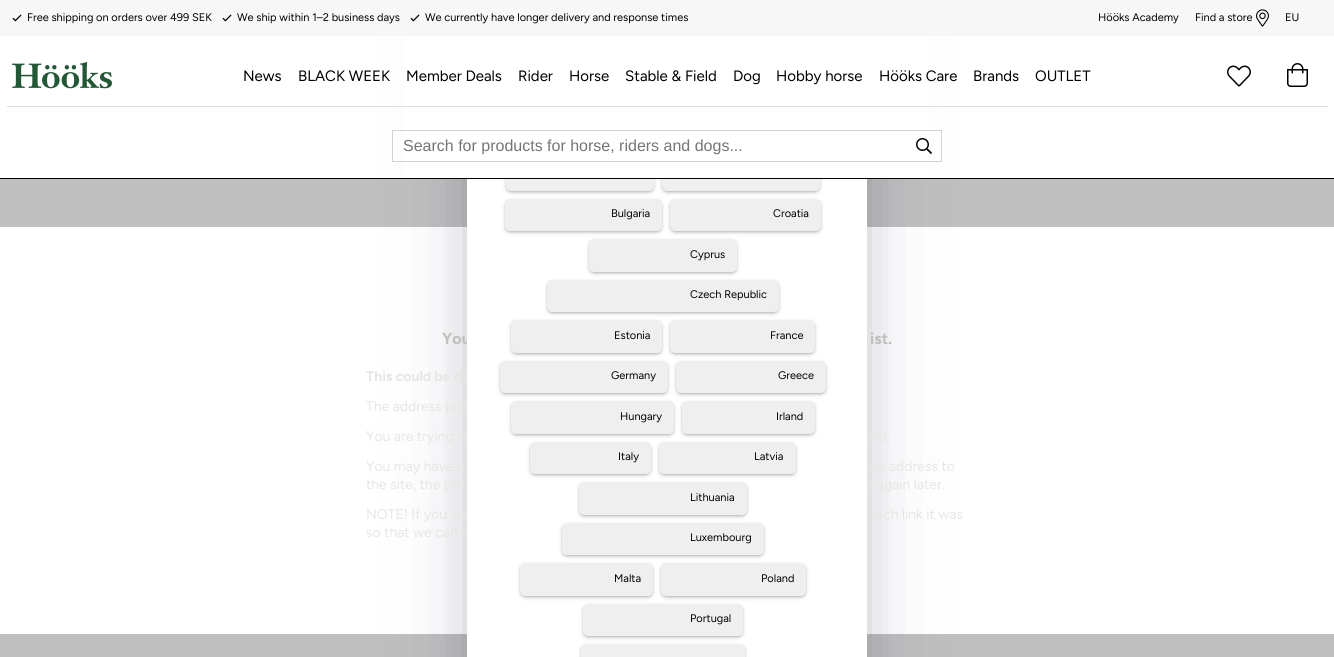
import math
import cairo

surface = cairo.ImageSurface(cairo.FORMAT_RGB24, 1334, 657)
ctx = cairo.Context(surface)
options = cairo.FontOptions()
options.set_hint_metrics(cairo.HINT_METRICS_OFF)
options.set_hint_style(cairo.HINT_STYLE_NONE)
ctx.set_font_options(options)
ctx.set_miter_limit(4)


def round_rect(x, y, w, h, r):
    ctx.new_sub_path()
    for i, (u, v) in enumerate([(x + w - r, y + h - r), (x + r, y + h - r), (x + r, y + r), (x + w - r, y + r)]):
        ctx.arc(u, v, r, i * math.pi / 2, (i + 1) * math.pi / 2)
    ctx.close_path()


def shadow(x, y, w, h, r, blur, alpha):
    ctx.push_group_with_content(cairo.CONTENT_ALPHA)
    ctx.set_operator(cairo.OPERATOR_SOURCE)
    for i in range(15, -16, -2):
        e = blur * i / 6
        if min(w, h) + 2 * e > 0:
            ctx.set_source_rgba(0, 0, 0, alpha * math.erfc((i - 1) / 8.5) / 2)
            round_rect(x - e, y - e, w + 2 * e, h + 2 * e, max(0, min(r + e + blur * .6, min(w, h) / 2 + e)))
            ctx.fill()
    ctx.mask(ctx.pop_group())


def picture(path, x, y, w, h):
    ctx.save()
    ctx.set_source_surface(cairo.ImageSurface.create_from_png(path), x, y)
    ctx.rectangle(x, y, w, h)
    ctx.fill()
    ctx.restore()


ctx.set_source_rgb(1, 1, 1)
ctx.paint()
ctx.set_source_rgb(0.749, 0.749, 0.749)
ctx.rectangle(0, 179, 1334, 48)
ctx.fill()
ctx.rectangle(0, 634, 1334, 23)
ctx.fill()
ctx.set_source_rgb(0, 0, 0)
shadow(497, -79, 340, 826, 0, 30, 0.3)
ctx.set_source_rgb(0.196, 0.196, 0.365)
shadow(487, -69, 360, 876, 0, 50, 0.25)
ctx.select_font_face("Figtree", cairo.FONT_SLANT_NORMAL, cairo.FONT_WEIGHT_BOLD)
ctx.set_font_size(16)
ctx.set_source_rgb(0.749, 0.749, 0.749)
ctx.move_to(442, 344)
ctx.show_text("You")
ctx.set_font_size(14)
ctx.set_source_rgb(0.902, 0.902, 0.902)
ctx.move_to(366, 381)
ctx.show_text("This could be du")
ctx.select_font_face("Figtree")
ctx.move_to(366, 441)
ctx.show_text("You are trying to")
ctx.move_to(863, 441)
ctx.show_text("ged.")
ctx.move_to(865, 471)
ctx.show_text("ect address to")
ctx.move_to(866, 489)
ctx.show_text("y again later.")
ctx.move_to(366, 519)
ctx.show_text("NOTE! If you we")
ctx.set_source_rgb(1, 1, 1)
ctx.rectangle(467, 179, 400, 478)
ctx.fill()
ctx.set_source_rgb(0, 0, 0)
shadow(507, 160, 146, 31, 4, 1.5, 0.3)
ctx.set_source_rgb(0.196, 0.196, 0.365)
shadow(507, 161, 146, 31, 4, 2.5, 0.25)
ctx.set_source_rgb(0.937, 0.937, 0.937)
round_rect(506, 158, 148, 33, 5)
ctx.fill()
ctx.set_source_rgb(0, 0, 0)
shadow(663, 160, 156, 31, 4, 1.5, 0.3)
ctx.set_source_rgb(0.196, 0.196, 0.365)
shadow(663, 161, 156, 31, 4, 2.5, 0.25)
ctx.set_source_rgb(0.937, 0.937, 0.937)
round_rect(662, 158, 158, 33, 5)
ctx.fill()
ctx.set_source_rgb(1, 1, 1)
ctx.rectangle(405, 36, 524, 142)
ctx.fill()
ctx.set_source_rgb(0, 0, 0)
ctx.rectangle(0, 178, 1334, 1)
ctx.fill()
ctx.set_source_rgb(0.965, 0.965, 0.965)
ctx.rectangle(0, 0, 1334, 36)
ctx.fill()
picture("img1.png", 12, 14, 10, 8)
ctx.set_font_size(11)
ctx.set_source_rgb(0, 0, 0)
ctx.move_to(27, 21)
ctx.show_text("Free shipping on orders over 499 SEK")
picture("img1.png", 222, 14, 10, 8)
ctx.move_to(237, 21)
ctx.show_text("We ship within 1–2 business days")
picture("img1.png", 410, 14, 10, 8)
ctx.move_to(425, 21)
ctx.show_text("We currently have longer delivery and response times")
ctx.move_to(1098, 21)
ctx.show_text("Hööks Academy")
ctx.move_to(1195, 21)
ctx.show_text("Find a store")
picture("img2.png", 1256, 9, 13, 18)
ctx.move_to(1285, 21)
ctx.show_text("EU")
picture("img3.png", 12, 62, 100, 27)
ctx.set_font_size(15)
ctx.move_to(243, 81)
ctx.show_text("News")
ctx.move_to(298, 81)
ctx.show_text("BLACK WEEK")
ctx.move_to(406, 81)
ctx.show_text("Member Deals")
ctx.move_to(518, 81)
ctx.show_text("Rider")
ctx.move_to(569, 81)
ctx.show_text("Horse")
ctx.move_to(625, 81)
ctx.show_text("Stable & Field")
ctx.move_to(733, 81)
ctx.show_text("Dog")
ctx.move_to(776, 81)
ctx.show_text("Hobby horse")
ctx.move_to(879, 81)
ctx.show_text("Hööks Care")
ctx.move_to(973, 81)
ctx.show_text("Brands")
ctx.move_to(1035, 81)
ctx.show_text("OUTLET")
ctx.set_source_rgb(0.867, 0.867, 0.867)
ctx.rectangle(7, 106, 1321, 1)
ctx.fill()
picture("img4.png", 1227, 65, 24, 22)
picture("img5.png", 1287, 63, 21, 24)
ctx.rectangle(392.5, 130.5, 549, 31)
ctx.set_source_rgb(0.824, 0.824, 0.824)
ctx.set_line_width(1)
ctx.stroke()
ctx.select_font_face("Liberation Sans")
ctx.set_font_size(16)
ctx.set_source_rgb(0.459, 0.459, 0.459)
ctx.move_to(403, 151)
ctx.show_text("Search for products for horse, riders and dogs...")
picture("img6.png", 916, 138, 16, 16)
ctx.select_font_face("Figtree", cairo.FONT_SLANT_NORMAL, cairo.FONT_WEIGHT_BOLD)
ctx.set_source_rgb(0.749, 0.749, 0.749)
ctx.move_to(870, 344)
ctx.show_text("ist.")
ctx.select_font_face("Figtree")
ctx.set_font_size(14)
ctx.set_source_rgb(0.902, 0.902, 0.902)
ctx.move_to(366, 411)
ctx.show_text("The address pro")
ctx.move_to(366, 471)
ctx.show_text("You may have u")
ctx.move_to(366, 489)
ctx.show_text("the site, the pro")
ctx.move_to(872, 519)
ctx.show_text("hich link it was")
ctx.move_to(366, 537)
ctx.show_text("so that we can r")
ctx.set_source_rgb(0, 0, 0)
shadow(506, 201, 155, 30, 4, 1.5, 0.3)
ctx.set_source_rgb(0.196, 0.196, 0.365)
shadow(506, 202, 155, 30, 4, 2.5, 0.25)
ctx.set_source_rgb(0.937, 0.937, 0.937)
round_rect(505, 199, 157, 32, 5)
ctx.fill()
ctx.set_font_size(11)
ctx.set_source_rgb(0, 0, 0)
ctx.move_to(611, 217)
ctx.show_text("Bulgaria")
ctx.set_source_rgb(0, 0, 0)
shadow(671, 201, 149, 30, 4, 1.5, 0.3)
ctx.set_source_rgb(0.196, 0.196, 0.365)
shadow(671, 202, 149, 30, 4, 2.5, 0.25)
ctx.set_source_rgb(0.937, 0.937, 0.937)
round_rect(670, 199, 151, 32, 5)
ctx.fill()
ctx.set_source_rgb(0, 0, 0)
ctx.move_to(773, 217)
ctx.show_text("Croatia")
ctx.set_source_rgb(0, 0, 0)
shadow(590, 241, 146, 31, 4, 1.5, 0.3)
ctx.set_source_rgb(0.196, 0.196, 0.365)
shadow(590, 242, 146, 31, 4, 2.5, 0.25)
ctx.set_source_rgb(0.937, 0.937, 0.937)
round_rect(589, 239, 148, 33, 5)
ctx.fill()
ctx.set_source_rgb(0, 0, 0)
ctx.move_to(690, 258)
ctx.show_text("Cyprus")
ctx.set_source_rgb(0, 0, 0)
shadow(548, 282, 230, 30, 4, 1.5, 0.3)
ctx.set_source_rgb(0.196, 0.196, 0.365)
shadow(548, 283, 230, 30, 4, 2.5, 0.25)
ctx.set_source_rgb(0.937, 0.937, 0.937)
round_rect(547, 280, 232, 32, 5)
ctx.fill()
ctx.set_source_rgb(0, 0, 0)
ctx.move_to(690, 298)
ctx.show_text("Czech Republic")
ctx.set_source_rgb(0, 0, 0)
shadow(512, 322, 149, 31, 4, 1.5, 0.3)
ctx.set_source_rgb(0.196, 0.196, 0.365)
shadow(512, 323, 149, 31, 4, 2.5, 0.25)
ctx.set_source_rgb(0.937, 0.937, 0.937)
round_rect(511, 320, 151, 33, 5)
ctx.fill()
ctx.set_source_rgb(0, 0, 0)
ctx.move_to(614, 339)
ctx.show_text("Estonia")
ctx.set_source_rgb(0, 0, 0)
shadow(671, 322, 143, 31, 4, 1.5, 0.3)
ctx.set_source_rgb(0.196, 0.196, 0.365)
shadow(671, 323, 143, 31, 4, 2.5, 0.25)
ctx.set_source_rgb(0.937, 0.937, 0.937)
round_rect(670, 320, 145, 33, 5)
ctx.fill()
ctx.set_source_rgb(0, 0, 0)
ctx.move_to(770, 339)
ctx.show_text("France")
ctx.set_source_rgb(0, 0, 0)
shadow(501, 363, 166, 30, 4, 1.5, 0.3)
ctx.set_source_rgb(0.196, 0.196, 0.365)
shadow(501, 364, 166, 30, 4, 2.5, 0.25)
ctx.set_source_rgb(0.937, 0.937, 0.937)
round_rect(500, 361, 168, 32, 5)
ctx.fill()
ctx.set_source_rgb(0, 0, 0)
ctx.move_to(611, 379)
ctx.show_text("Germany")
ctx.set_source_rgb(0, 0, 0)
shadow(677, 363, 148, 30, 4, 1.5, 0.3)
ctx.set_source_rgb(0.196, 0.196, 0.365)
shadow(677, 364, 148, 30, 4, 2.5, 0.25)
ctx.set_source_rgb(0.937, 0.937, 0.937)
round_rect(676, 361, 150, 32, 5)
ctx.fill()
ctx.set_source_rgb(0, 0, 0)
ctx.move_to(778, 379)
ctx.show_text("Greece")
ctx.set_source_rgb(0, 0, 0)
shadow(512, 403, 161, 31, 4, 1.5, 0.3)
ctx.set_source_rgb(0.196, 0.196, 0.365)
shadow(512, 404, 161, 31, 4, 2.5, 0.25)
ctx.set_source_rgb(0.937, 0.937, 0.937)
round_rect(511, 401, 163, 33, 5)
ctx.fill()
ctx.set_source_rgb(0, 0, 0)
ctx.move_to(620, 420)
ctx.show_text("Hungary")
ctx.set_source_rgb(0, 0, 0)
shadow(683, 403, 131, 31, 4, 1.5, 0.3)
ctx.set_source_rgb(0.196, 0.196, 0.365)
shadow(683, 404, 131, 31, 4, 2.5, 0.25)
ctx.set_source_rgb(0.937, 0.937, 0.937)
round_rect(682, 401, 133, 33, 5)
ctx.fill()
ctx.set_source_rgb(0, 0, 0)
ctx.move_to(776, 420)
ctx.show_text("Irland")
ctx.set_source_rgb(0, 0, 0)
shadow(531, 444, 119, 30, 4, 1.5, 0.3)
ctx.set_source_rgb(0.196, 0.196, 0.365)
shadow(531, 445, 119, 30, 4, 2.5, 0.25)
ctx.set_source_rgb(0.937, 0.937, 0.937)
round_rect(530, 442, 121, 32, 5)
ctx.fill()
ctx.set_source_rgb(0, 0, 0)
ctx.move_to(618, 460)
ctx.show_text("Italy")
ctx.set_source_rgb(0, 0, 0)
shadow(660, 444, 135, 30, 4, 1.5, 0.3)
ctx.set_source_rgb(0.196, 0.196, 0.365)
shadow(660, 445, 135, 30, 4, 2.5, 0.25)
ctx.set_source_rgb(0.937, 0.937, 0.937)
round_rect(659, 442, 137, 32, 5)
ctx.fill()
ctx.set_source_rgb(0, 0, 0)
ctx.move_to(754, 460)
ctx.show_text("Latvia")
ctx.set_source_rgb(0, 0, 0)
shadow(580, 484, 166, 31, 4, 1.5, 0.3)
ctx.set_source_rgb(0.196, 0.196, 0.365)
shadow(580, 485, 166, 31, 4, 2.5, 0.25)
ctx.set_source_rgb(0.937, 0.937, 0.937)
round_rect(579, 482, 168, 33, 5)
ctx.fill()
ctx.set_source_rgb(0, 0, 0)
ctx.move_to(690, 501)
ctx.show_text("Lithuania")
ctx.set_source_rgb(0, 0, 0)
shadow(563, 525, 200, 30, 4, 1.5, 0.3)
ctx.set_source_rgb(0.196, 0.196, 0.365)
shadow(563, 526, 200, 30, 4, 2.5, 0.25)
ctx.set_source_rgb(0.937, 0.937, 0.937)
round_rect(562, 523, 202, 32, 5)
ctx.fill()
ctx.set_source_rgb(0, 0, 0)
ctx.move_to(690, 541)
ctx.show_text("Luxembourg")
ctx.set_source_rgb(0, 0, 0)
shadow(521, 565, 131, 31, 4, 1.5, 0.3)
ctx.set_source_rgb(0.196, 0.196, 0.365)
shadow(521, 566, 131, 31, 4, 2.5, 0.25)
ctx.set_source_rgb(0.937, 0.937, 0.937)
round_rect(520, 563, 133, 33, 5)
ctx.fill()
ctx.set_source_rgb(0, 0, 0)
ctx.move_to(614, 582)
ctx.show_text("Malta")
ctx.set_source_rgb(0, 0, 0)
shadow(662, 565, 143, 31, 4, 1.5, 0.3)
ctx.set_source_rgb(0.196, 0.196, 0.365)
shadow(662, 566, 143, 31, 4, 2.5, 0.25)
ctx.set_source_rgb(0.937, 0.937, 0.937)
round_rect(661, 563, 145, 33, 5)
ctx.fill()
ctx.set_source_rgb(0, 0, 0)
ctx.move_to(761, 582)
ctx.show_text("Poland")
ctx.set_source_rgb(0, 0, 0)
shadow(584, 606, 158, 30, 4, 1.5, 0.3)
ctx.set_source_rgb(0.196, 0.196, 0.365)
shadow(584, 607, 158, 30, 4, 2.5, 0.25)
ctx.set_source_rgb(0.937, 0.937, 0.937)
round_rect(583, 604, 160, 32, 5)
ctx.fill()
ctx.set_source_rgb(0, 0, 0)
ctx.move_to(690, 622)
ctx.show_text("Portugal")
ctx.set_source_rgb(0, 0, 0)
shadow(582, 646, 162, 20, 4, 1.5, 0.3)
ctx.set_source_rgb(0.196, 0.196, 0.365)
shadow(582, 647, 162, 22, 4, 2.5, 0.25)
ctx.set_source_rgb(0.937, 0.937, 0.937)
round_rect(581, 644, 164, 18, 5)
ctx.fill()
surface.write_to_png("page.png")
